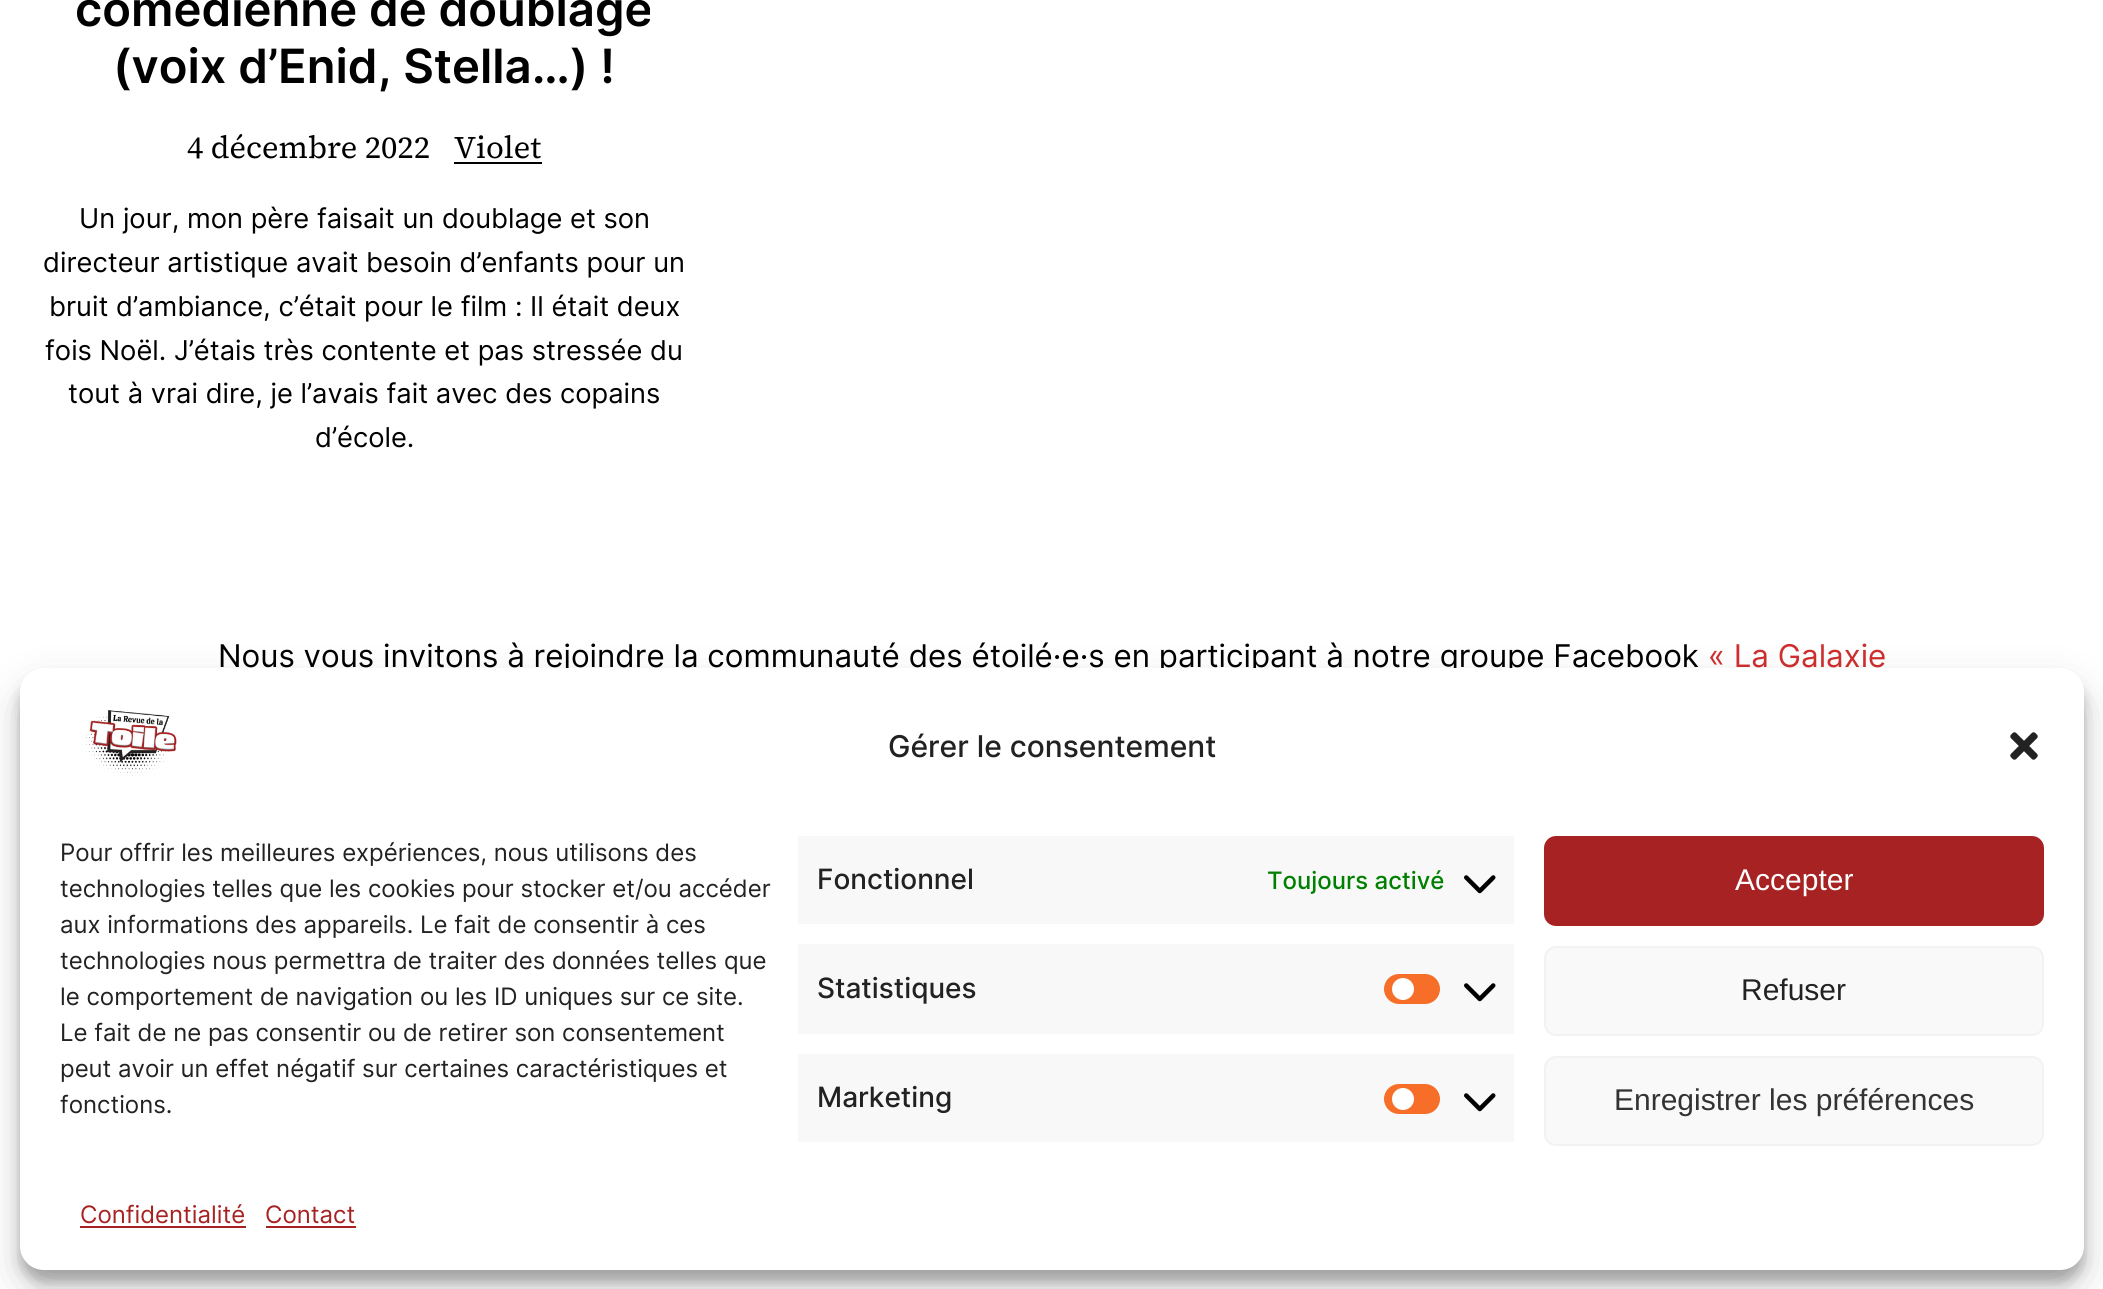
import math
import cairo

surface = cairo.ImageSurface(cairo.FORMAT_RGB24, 2103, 1289)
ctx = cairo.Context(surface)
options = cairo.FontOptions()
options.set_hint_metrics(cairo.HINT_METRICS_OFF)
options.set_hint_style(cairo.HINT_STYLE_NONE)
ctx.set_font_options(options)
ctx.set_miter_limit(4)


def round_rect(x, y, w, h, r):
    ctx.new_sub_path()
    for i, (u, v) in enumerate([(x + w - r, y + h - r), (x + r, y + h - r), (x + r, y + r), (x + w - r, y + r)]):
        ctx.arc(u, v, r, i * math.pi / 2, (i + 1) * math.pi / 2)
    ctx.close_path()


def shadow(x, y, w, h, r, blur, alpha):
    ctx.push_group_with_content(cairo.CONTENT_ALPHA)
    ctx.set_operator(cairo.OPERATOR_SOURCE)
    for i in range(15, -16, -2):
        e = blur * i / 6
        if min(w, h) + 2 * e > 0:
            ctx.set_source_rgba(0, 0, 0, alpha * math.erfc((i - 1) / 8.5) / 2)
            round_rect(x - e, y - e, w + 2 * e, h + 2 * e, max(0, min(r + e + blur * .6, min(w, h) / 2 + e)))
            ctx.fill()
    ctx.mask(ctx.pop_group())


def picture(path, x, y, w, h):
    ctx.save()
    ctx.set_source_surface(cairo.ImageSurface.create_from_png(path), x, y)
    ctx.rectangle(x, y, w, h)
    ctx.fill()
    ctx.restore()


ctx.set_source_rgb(1, 1, 1)
ctx.paint()
ctx.select_font_face("Inter SemiBold")
ctx.set_font_size(47.25)
ctx.set_source_rgb(0, 0, 0)
ctx.move_to(75, 26)
ctx.show_text("comédienne de doublage")
ctx.move_to(113, 83)
ctx.show_text("(voix d’Enid, Stella…) !")
ctx.select_font_face("Source Serif 4")
ctx.set_font_size(31.3)
ctx.move_to(187, 158)
ctx.show_text("4 décembre 2022")
ctx.move_to(454, 158)
ctx.show_text("Violet")
ctx.rectangle(454, 162, 88, 2)
ctx.fill()
ctx.select_font_face("Inter")
ctx.set_font_size(27.3)
ctx.move_to(79, 228)
ctx.show_text("Un jour, mon père faisait un doublage et son")
ctx.move_to(43, 272)
ctx.show_text("directeur artistique avait besoin d’enfants pour un")
ctx.move_to(49, 316)
ctx.show_text("bruit d’ambiance, c’était pour le film : Il était deux")
ctx.move_to(45, 360)
ctx.show_text("fois Noël. J’étais très contente et pas stressée du")
ctx.move_to(68, 403)
ctx.show_text("tout à vrai dire, je l’avais fait avec des copains")
ctx.move_to(315, 447)
ctx.show_text("d’école.")
ctx.set_font_size(31.3)
ctx.move_to(218, 667)
ctx.show_text("Nous vous invitons à rejoindre la communauté des étoilé·e·s en participant à notre groupe Facebook")
ctx.set_source_rgb(0.812, 0.18, 0.18)
ctx.move_to(1708, 667)
ctx.show_text("« La Galaxie")
ctx.set_source_rgb(0, 0, 0)
shadow(20, 680, 2064, 602, 24, 6, 0.23)
shadow(20, 688, 2064, 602, 24, 20, 0.19)
ctx.set_source_rgb(1, 1, 1)
round_rect(20, 668, 2064, 602, 24)
ctx.fill()
picture("img1.png", 82, 710, 95, 66)
ctx.select_font_face("Inter Medium")
ctx.set_font_size(30)
ctx.set_source_rgb(0.133, 0.133, 0.133)
ctx.move_to(888, 757)
ctx.show_text("Gérer le consentement")
picture("img2.png", 2010, 732, 28, 28)
ctx.select_font_face("Inter")
ctx.set_font_size(24)
ctx.move_to(60, 861)
ctx.show_text("Pour offrir les meilleures expériences, nous utilisons des")
ctx.move_to(60, 897)
ctx.show_text("technologies telles que les cookies pour stocker et/ou accéder")
ctx.move_to(60, 933)
ctx.show_text("aux informations des appareils. Le fait de consentir à ces")
ctx.move_to(60, 969)
ctx.show_text("technologies nous permettra de traiter des données telles que")
ctx.move_to(60, 1005)
ctx.show_text("le comportement de navigation ou les ID uniques sur ce site.")
ctx.move_to(60, 1041)
ctx.show_text("Le fait de ne pas consentir ou de retirer son consentement")
ctx.move_to(60, 1077)
ctx.show_text("peut avoir un effet négatif sur certaines caractéristiques et")
ctx.move_to(60, 1113)
ctx.show_text("fonctions.")
ctx.set_source_rgb(0.969, 0.969, 0.969)
ctx.rectangle(798, 836, 716, 88)
ctx.fill()
ctx.select_font_face("Inter Medium")
ctx.set_font_size(28)
ctx.set_source_rgb(0.133, 0.133, 0.133)
ctx.move_to(817, 889)
ctx.show_text("Fonctionnel")
ctx.set_font_size(24)
ctx.set_source_rgb(0, 0.502, 0)
ctx.move_to(1267, 889)
ctx.show_text("Toujours activé")
picture("img3.png", 1464, 875, 32, 19)
ctx.set_source_rgb(0.969, 0.969, 0.969)
ctx.rectangle(798, 944, 716, 90)
ctx.fill()
ctx.set_font_size(28)
ctx.set_source_rgb(0.133, 0.133, 0.133)
ctx.move_to(817, 998)
ctx.show_text("Statistiques")
ctx.set_source_rgb(0.961, 0.431, 0.157)
round_rect(1384, 974, 56, 30, 15)
ctx.fill()
ctx.set_source_rgb(1, 1, 1)
ctx.arc(1403, 989, 11, 0, 2 * math.pi)
ctx.fill()
picture("img3.png", 1464, 983, 32, 19)
ctx.set_source_rgb(0.969, 0.969, 0.969)
ctx.rectangle(798, 1054, 716, 88)
ctx.fill()
ctx.set_source_rgb(0.133, 0.133, 0.133)
ctx.move_to(817, 1107)
ctx.show_text("Marketing")
ctx.set_source_rgb(0.961, 0.431, 0.157)
round_rect(1384, 1084, 56, 30, 15)
ctx.fill()
ctx.set_source_rgb(1, 1, 1)
ctx.arc(1403, 1099, 11, 0, 2 * math.pi)
ctx.fill()
picture("img3.png", 1464, 1093, 32, 19)
ctx.set_source_rgb(0.655, 0.133, 0.133)
round_rect(1545, 837, 498, 88, 11)
ctx.fill_preserve()
ctx.stroke()
ctx.select_font_face("Liberation Sans")
ctx.set_font_size(30)
ctx.set_source_rgb(1, 1, 1)
ctx.move_to(1735, 890)
ctx.show_text("Accepter")
ctx.set_source_rgb(0.976, 0.976, 0.976)
round_rect(1545, 947, 498, 88, 11)
ctx.fill_preserve()
ctx.set_source_rgb(0.949, 0.949, 0.949)
ctx.stroke()
ctx.set_source_rgb(0.133, 0.133, 0.133)
ctx.move_to(1741, 1000)
ctx.show_text("Refuser")
ctx.set_source_rgb(0.976, 0.976, 0.976)
round_rect(1545, 1057, 498, 88, 11)
ctx.fill_preserve()
ctx.set_source_rgb(0.949, 0.949, 0.949)
ctx.stroke()
ctx.set_source_rgb(0.2, 0.2, 0.2)
ctx.move_to(1614, 1110)
ctx.show_text("Enregistrer les préférences")
ctx.select_font_face("Inter")
ctx.set_font_size(24)
ctx.set_source_rgb(0.655, 0.133, 0.133)
ctx.move_to(80, 1223)
ctx.show_text("Confidentialité")
ctx.rectangle(80, 1226, 166, 2)
ctx.fill()
ctx.move_to(265, 1223)
ctx.show_text("Contact")
ctx.rectangle(266, 1226, 90, 2)
ctx.fill()
surface.write_to_png("page.png")
